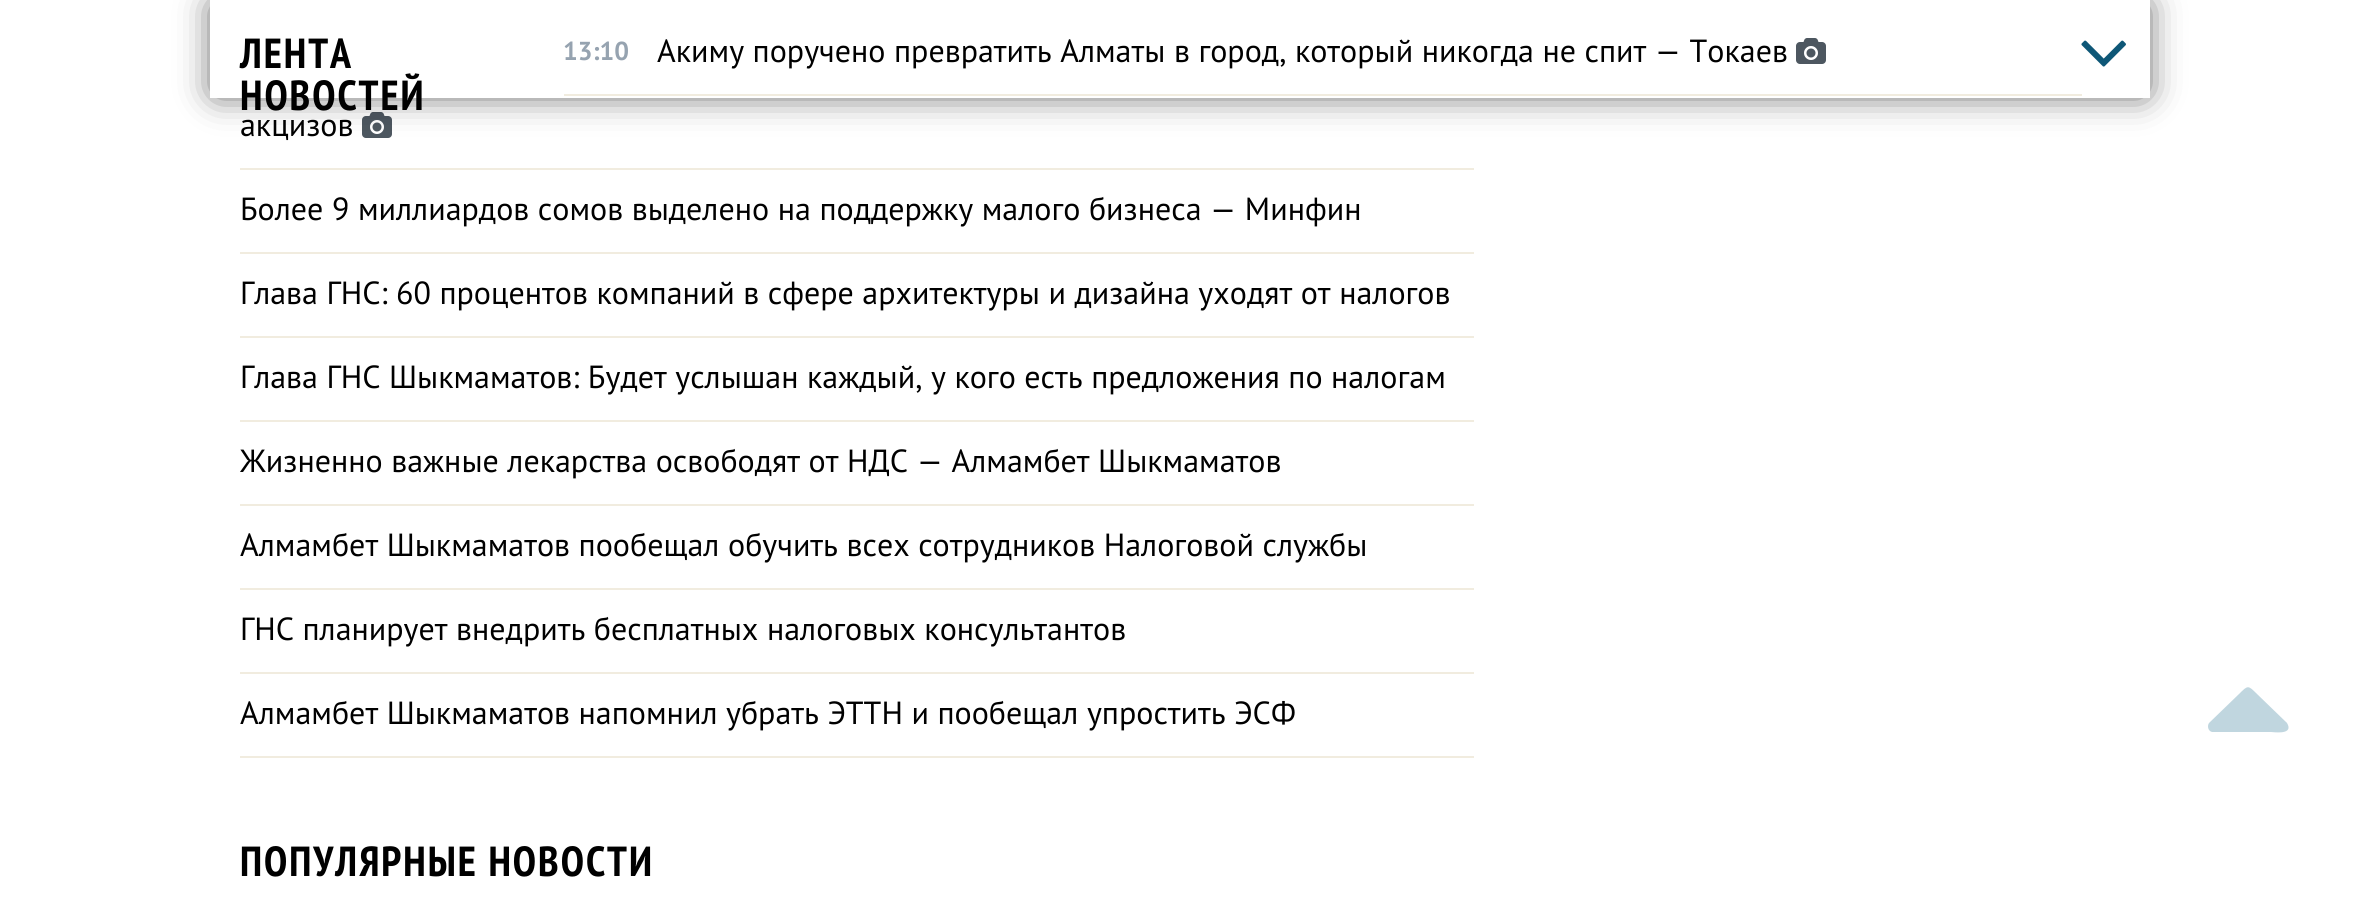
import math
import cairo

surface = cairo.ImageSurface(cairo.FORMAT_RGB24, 2359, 903)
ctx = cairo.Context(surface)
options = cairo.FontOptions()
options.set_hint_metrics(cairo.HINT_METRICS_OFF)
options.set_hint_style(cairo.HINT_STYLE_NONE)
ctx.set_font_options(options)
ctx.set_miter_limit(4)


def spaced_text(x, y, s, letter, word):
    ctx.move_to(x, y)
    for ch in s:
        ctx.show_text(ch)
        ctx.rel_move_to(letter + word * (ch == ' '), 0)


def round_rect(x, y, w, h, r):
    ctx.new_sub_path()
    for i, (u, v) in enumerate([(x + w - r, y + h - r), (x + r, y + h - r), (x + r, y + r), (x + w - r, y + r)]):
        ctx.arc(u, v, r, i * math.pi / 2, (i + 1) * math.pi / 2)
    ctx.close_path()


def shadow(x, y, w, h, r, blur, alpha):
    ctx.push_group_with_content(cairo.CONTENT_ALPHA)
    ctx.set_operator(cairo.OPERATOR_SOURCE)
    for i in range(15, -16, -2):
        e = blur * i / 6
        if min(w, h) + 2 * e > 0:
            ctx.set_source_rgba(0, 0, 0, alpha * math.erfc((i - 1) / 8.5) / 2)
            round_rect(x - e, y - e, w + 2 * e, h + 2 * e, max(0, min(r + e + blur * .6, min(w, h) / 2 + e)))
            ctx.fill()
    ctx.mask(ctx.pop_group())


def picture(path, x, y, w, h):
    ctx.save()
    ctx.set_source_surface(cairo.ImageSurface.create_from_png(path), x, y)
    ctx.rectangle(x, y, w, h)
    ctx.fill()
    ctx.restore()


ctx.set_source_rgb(1, 1, 1)
ctx.paint()
picture("img1.png", 362, 112, 30, 26)
ctx.set_source_rgb(0, 0, 0)
shadow(216, 6, 1928, 86, 0, 18, 0.75)
ctx.set_source_rgb(1, 1, 1)
ctx.rectangle(210, 0, 1940, 98)
ctx.fill()
ctx.select_font_face("PT Sans Narrow", cairo.FONT_SLANT_NORMAL, cairo.FONT_WEIGHT_BOLD)
ctx.set_font_size(42)
ctx.set_source_rgb(0, 0, 0)
spaced_text(240, 68, "ЛЕНТА", 2, 0)
spaced_text(240, 110, "НОВОСТЕЙ", 2, 0)
ctx.set_source_rgb(0.945, 0.922, 0.875)
ctx.rectangle(564, 94, 1518, 2)
ctx.fill()
ctx.select_font_face("PT Sans", cairo.FONT_SLANT_NORMAL, cairo.FONT_WEIGHT_BOLD)
ctx.set_font_size(26)
ctx.set_source_rgb(0.588, 0.639, 0.69)
ctx.move_to(563, 60)
ctx.show_text("13:10")
ctx.select_font_face("PT Sans")
ctx.set_font_size(32)
ctx.set_source_rgb(0, 0, 0)
ctx.move_to(657, 62)
ctx.show_text("Акиму поручено превратить Алматы в город, который никогда не спит — Токаев")
picture("img1.png", 1796, 38, 30, 26)
picture("img2.png", 2081, 40, 45, 27)
ctx.set_source_rgb(0.945, 0.922, 0.875)
ctx.rectangle(240, 168, 1234, 2)
ctx.fill()
ctx.set_source_rgb(0, 0, 0)
ctx.move_to(240, 136)
ctx.show_text("акцизов")
ctx.set_source_rgb(0.945, 0.922, 0.875)
ctx.rectangle(240, 252, 1234, 2)
ctx.fill()
ctx.set_source_rgb(0, 0, 0)
ctx.move_to(240, 220)
ctx.show_text("Более 9 миллиардов сомов выделено на поддержку малого бизнеса — Минфин")
ctx.set_source_rgb(0.945, 0.922, 0.875)
ctx.rectangle(240, 336, 1234, 2)
ctx.fill()
ctx.set_source_rgb(0, 0, 0)
ctx.move_to(240, 304)
ctx.show_text("Глава ГНС: 60 процентов компаний в сфере архитектуры и дизайна уходят от налогов")
ctx.set_source_rgb(0.945, 0.922, 0.875)
ctx.rectangle(240, 420, 1234, 2)
ctx.fill()
ctx.set_source_rgb(0, 0, 0)
ctx.move_to(240, 388)
ctx.show_text("Глава ГНС Шыкмаматов: Будет услышан каждый, у кого есть предложения по налогам")
ctx.set_source_rgb(0.945, 0.922, 0.875)
ctx.rectangle(240, 504, 1234, 2)
ctx.fill()
ctx.set_source_rgb(0, 0, 0)
ctx.move_to(240, 472)
ctx.show_text("Жизненно важные лекарства освободят от НДС — Алмамбет Шыкмаматов")
ctx.set_source_rgb(0.945, 0.922, 0.875)
ctx.rectangle(240, 588, 1234, 2)
ctx.fill()
ctx.set_source_rgb(0, 0, 0)
ctx.move_to(240, 556)
ctx.show_text("Алмамбет Шыкмаматов пообещал обучить всех сотрудников Налоговой службы")
ctx.set_source_rgb(0.945, 0.922, 0.875)
ctx.rectangle(240, 672, 1234, 2)
ctx.fill()
ctx.set_source_rgb(0, 0, 0)
ctx.move_to(240, 640)
ctx.show_text("ГНС планирует внедрить бесплатных налоговых консультантов")
ctx.set_source_rgb(0.945, 0.922, 0.875)
ctx.rectangle(240, 756, 1234, 2)
ctx.fill()
ctx.set_source_rgb(0, 0, 0)
ctx.move_to(240, 724)
ctx.show_text("Алмамбет Шыкмаматов напомнил убрать ЭТТН и пообещал упростить ЭСФ")
ctx.select_font_face("PT Sans Narrow", cairo.FONT_SLANT_NORMAL, cairo.FONT_WEIGHT_BOLD)
ctx.set_font_size(42)
spaced_text(240, 876, "ПОПУЛЯРНЫЕ НОВОСТИ", 2, 0)
ctx.set_source_rgb(0.753, 0.839, 0.875)
ctx.new_path()
ctx.move_to(2287, 723)
ctx.line_to(2288, 725)
ctx.curve_to(2292, 735, 2273, 732, 2271, 732)
ctx.line_to(2212, 732)
ctx.curve_to(2208, 731, 2207, 726, 2209, 723)
ctx.line_to(2239, 694)
ctx.curve_to(2248, 685, 2248, 685, 2257, 694)
ctx.close_path()
ctx.fill()
surface.write_to_png("page.png")
